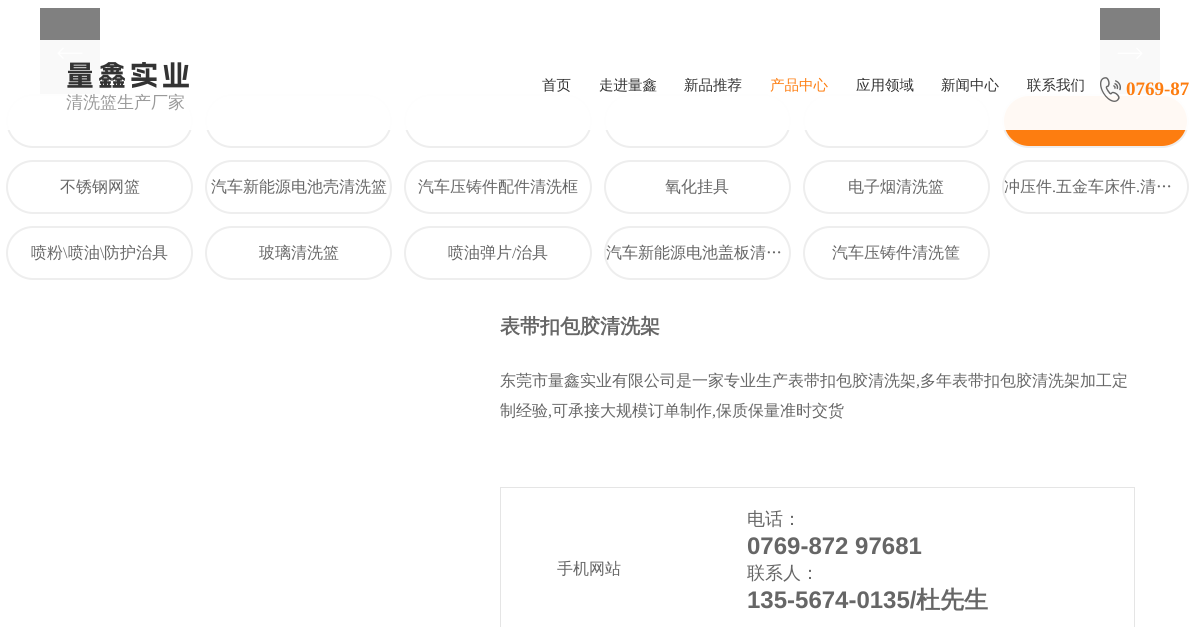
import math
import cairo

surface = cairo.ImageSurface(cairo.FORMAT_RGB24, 1189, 627)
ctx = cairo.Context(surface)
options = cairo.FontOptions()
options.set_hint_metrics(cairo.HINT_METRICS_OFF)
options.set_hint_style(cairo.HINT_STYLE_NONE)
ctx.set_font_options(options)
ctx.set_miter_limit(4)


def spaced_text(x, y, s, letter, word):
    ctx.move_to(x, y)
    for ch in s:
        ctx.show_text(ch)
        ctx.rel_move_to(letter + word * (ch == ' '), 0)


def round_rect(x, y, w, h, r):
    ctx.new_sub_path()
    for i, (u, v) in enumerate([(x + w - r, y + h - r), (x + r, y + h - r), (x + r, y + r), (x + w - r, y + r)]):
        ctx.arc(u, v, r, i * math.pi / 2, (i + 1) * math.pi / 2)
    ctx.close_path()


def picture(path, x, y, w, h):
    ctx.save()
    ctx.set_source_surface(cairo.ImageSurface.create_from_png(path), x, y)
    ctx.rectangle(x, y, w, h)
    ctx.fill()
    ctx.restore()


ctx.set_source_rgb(1, 1, 1)
ctx.paint()
ctx.set_source_rgb(0.502, 0.502, 0.502)
ctx.rectangle(40, 8, 60, 86)
ctx.fill()
picture("img1.png", 57, 47, 26, 12)
ctx.rectangle(1100, 8, 60, 86)
ctx.fill()
picture("img2.png", 1117, 47, 26, 12)
round_rect(7, 95, 185, 52, 26)
ctx.set_source_rgb(0.933, 0.933, 0.933)
ctx.stroke()
round_rect(206, 95, 185, 52, 26)
ctx.stroke()
round_rect(405, 95, 186, 52, 26)
ctx.stroke()
round_rect(605, 95, 185, 52, 26)
ctx.stroke()
round_rect(804, 95, 185, 52, 26)
ctx.stroke()
round_rect(1003, 95, 185, 52, 26)
ctx.stroke()
ctx.set_source_rgb(0.992, 0.49, 0.063)
round_rect(1004, 96, 183, 50, 25)
ctx.fill()
ctx.set_source_rgba(1, 1, 1, 0.95)
ctx.rectangle(6, 40, 1183, 90)
ctx.fill()
ctx.select_font_face("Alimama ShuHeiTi", cairo.FONT_SLANT_NORMAL, cairo.FONT_WEIGHT_BOLD)
ctx.set_font_size(28)
ctx.set_source_rgb(0.2, 0.2, 0.2)
spaced_text(66, 85, "量鑫实业", 4, 0)
ctx.select_font_face("WenQuanYi Zen Hei Medium")
ctx.set_font_size(17)
ctx.set_source_rgb(0.6, 0.6, 0.6)
ctx.move_to(66, 108)
ctx.show_text("清洗篮生产厂家")
ctx.set_font_size(14.5)
ctx.set_source_rgb(0.2, 0.2, 0.2)
ctx.move_to(542, 90)
ctx.show_text("首页")
ctx.move_to(599, 90)
ctx.show_text("走进量鑫")
ctx.move_to(684, 90)
ctx.show_text("新品推荐")
ctx.set_source_rgb(0.992, 0.49, 0.063)
ctx.move_to(770, 90)
ctx.show_text("产品中心")
ctx.set_source_rgb(0.2, 0.2, 0.2)
ctx.move_to(856, 90)
ctx.show_text("应用领域")
ctx.move_to(941, 90)
ctx.show_text("新闻中心")
ctx.move_to(1027, 90)
ctx.show_text("联系我们")
picture("img3.png", 1100, 77, 21, 25)
ctx.select_font_face("Liberation Serif", cairo.FONT_SLANT_NORMAL, cairo.FONT_WEIGHT_BOLD)
ctx.set_font_size(19)
ctx.set_source_rgb(0.992, 0.49, 0.063)
ctx.move_to(1126, 95)
ctx.show_text("0769-87")
round_rect(7, 161, 185, 52, 26)
ctx.set_source_rgb(0.933, 0.933, 0.933)
ctx.stroke()
ctx.select_font_face("WenQuanYi Zen Hei Medium")
ctx.set_font_size(16)
ctx.set_source_rgb(0.4, 0.4, 0.4)
ctx.move_to(60, 192)
ctx.show_text("不锈钢网篮")
round_rect(206, 161, 185, 52, 26)
ctx.set_source_rgb(0.933, 0.933, 0.933)
ctx.stroke()
ctx.set_source_rgb(0.4, 0.4, 0.4)
ctx.move_to(211, 192)
ctx.show_text("汽车新能源电池壳清洗篮")
round_rect(405, 161, 186, 52, 26)
ctx.set_source_rgb(0.933, 0.933, 0.933)
ctx.stroke()
ctx.set_source_rgb(0.4, 0.4, 0.4)
ctx.move_to(418, 192)
ctx.show_text("汽车压铸件配件清洗框")
round_rect(605, 161, 185, 52, 26)
ctx.set_source_rgb(0.933, 0.933, 0.933)
ctx.stroke()
ctx.set_source_rgb(0.4, 0.4, 0.4)
ctx.move_to(665, 192)
ctx.show_text("氧化挂具")
round_rect(804, 161, 185, 52, 26)
ctx.set_source_rgb(0.933, 0.933, 0.933)
ctx.stroke()
ctx.set_source_rgb(0.4, 0.4, 0.4)
ctx.move_to(848, 192)
ctx.show_text("电子烟清洗篮")
round_rect(1003, 161, 185, 52, 26)
ctx.set_source_rgb(0.933, 0.933, 0.933)
ctx.stroke()
ctx.save()
round_rect(1004, 162, 183, 50, 25)
ctx.clip()
ctx.set_source_rgb(0.4, 0.4, 0.4)
ctx.move_to(1004, 192)
ctx.show_text("冲压件")
ctx.restore()
ctx.select_font_face("Liberation Serif")
ctx.set_source_rgb(0.4, 0.4, 0.4)
ctx.move_to(1052, 192)
ctx.show_text(".")
ctx.select_font_face("WenQuanYi Zen Hei Medium")
ctx.move_to(1056, 192)
ctx.show_text("五金车床件")
ctx.select_font_face("Liberation Serif")
ctx.move_to(1136, 192)
ctx.show_text(".")
ctx.select_font_face("WenQuanYi Zen Hei Medium")
ctx.move_to(1140, 192)
ctx.show_text("清…")
round_rect(7, 227, 185, 52, 26)
ctx.set_source_rgb(0.933, 0.933, 0.933)
ctx.stroke()
ctx.set_source_rgb(0.4, 0.4, 0.4)
ctx.move_to(31, 258)
ctx.show_text("喷粉")
ctx.select_font_face("Liberation Serif")
ctx.move_to(63, 258)
ctx.show_text("\\")
ctx.select_font_face("WenQuanYi Zen Hei Medium")
ctx.move_to(68, 258)
ctx.show_text("喷油")
ctx.select_font_face("Liberation Serif")
ctx.move_to(100, 258)
ctx.show_text("\\")
ctx.select_font_face("WenQuanYi Zen Hei Medium")
ctx.move_to(104, 258)
ctx.show_text("防护治具")
round_rect(206, 227, 185, 52, 26)
ctx.set_source_rgb(0.933, 0.933, 0.933)
ctx.stroke()
ctx.set_source_rgb(0.4, 0.4, 0.4)
ctx.move_to(259, 258)
ctx.show_text("玻璃清洗篮")
round_rect(405, 227, 186, 52, 26)
ctx.set_source_rgb(0.933, 0.933, 0.933)
ctx.stroke()
ctx.set_source_rgb(0.4, 0.4, 0.4)
ctx.move_to(448, 258)
ctx.show_text("喷油弹片")
ctx.select_font_face("Liberation Serif")
ctx.move_to(512, 258)
ctx.show_text("/")
ctx.select_font_face("WenQuanYi Zen Hei Medium")
ctx.move_to(516, 258)
ctx.show_text("治具")
round_rect(605, 227, 185, 52, 26)
ctx.set_source_rgb(0.933, 0.933, 0.933)
ctx.stroke()
ctx.save()
round_rect(606, 228, 183, 50, 25)
ctx.clip()
ctx.set_source_rgb(0.4, 0.4, 0.4)
ctx.move_to(606, 258)
ctx.show_text("汽车新能源电池盖板清…")
ctx.restore()
round_rect(804, 227, 185, 52, 26)
ctx.stroke()
ctx.set_source_rgb(0.4, 0.4, 0.4)
ctx.move_to(832, 258)
ctx.show_text("汽车压铸件清洗筐")
ctx.select_font_face("WenQuanYi Zen Hei", cairo.FONT_SLANT_NORMAL, cairo.FONT_WEIGHT_BOLD)
ctx.set_font_size(20)
ctx.move_to(500, 333)
ctx.show_text("表带扣包胶清洗架")
ctx.select_font_face("WenQuanYi Zen Hei Medium")
ctx.set_font_size(16)
ctx.move_to(500, 386)
ctx.show_text("东莞市量鑫实业有限公司是一家专业生产表带扣包胶清洗架")
ctx.select_font_face("Liberation Serif")
ctx.move_to(916, 386)
ctx.show_text(",")
ctx.select_font_face("WenQuanYi Zen Hei Medium")
ctx.move_to(920, 386)
ctx.show_text("多年表带扣包胶清洗架加工定")
ctx.move_to(500, 416)
ctx.show_text("制经验")
ctx.select_font_face("Liberation Serif")
ctx.move_to(548, 416)
ctx.show_text(",")
ctx.select_font_face("WenQuanYi Zen Hei Medium")
ctx.move_to(552, 416)
ctx.show_text("可承接大规模订单制作")
ctx.select_font_face("Liberation Serif")
ctx.move_to(712, 416)
ctx.show_text(",")
ctx.select_font_face("WenQuanYi Zen Hei Medium")
ctx.move_to(716, 416)
ctx.show_text("保质保量准时交货")
ctx.rectangle(500.5, 487.5, 634, 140)
ctx.set_source_rgb(0.898, 0.898, 0.898)
ctx.set_line_width(1)
ctx.stroke()
ctx.set_source_rgb(0.4, 0.4, 0.4)
ctx.move_to(557, 574)
ctx.show_text("手机网站")
ctx.set_font_size(18)
ctx.move_to(747, 525)
ctx.show_text("电话：")
ctx.select_font_face("Liberation Sans", cairo.FONT_SLANT_NORMAL, cairo.FONT_WEIGHT_BOLD)
ctx.set_font_size(24)
ctx.move_to(747, 554)
ctx.show_text("0769-872 97681")
ctx.select_font_face("WenQuanYi Zen Hei Medium")
ctx.set_font_size(18)
ctx.move_to(747, 579)
ctx.show_text("联系人：")
ctx.select_font_face("Liberation Sans", cairo.FONT_SLANT_NORMAL, cairo.FONT_WEIGHT_BOLD)
ctx.set_font_size(24)
ctx.move_to(747, 608)
ctx.show_text("135-5674-0135/")
ctx.select_font_face("WenQuanYi Zen Hei", cairo.FONT_SLANT_NORMAL, cairo.FONT_WEIGHT_BOLD)
ctx.move_to(916, 608)
ctx.show_text("杜先生")
surface.write_to_png("page.png")
